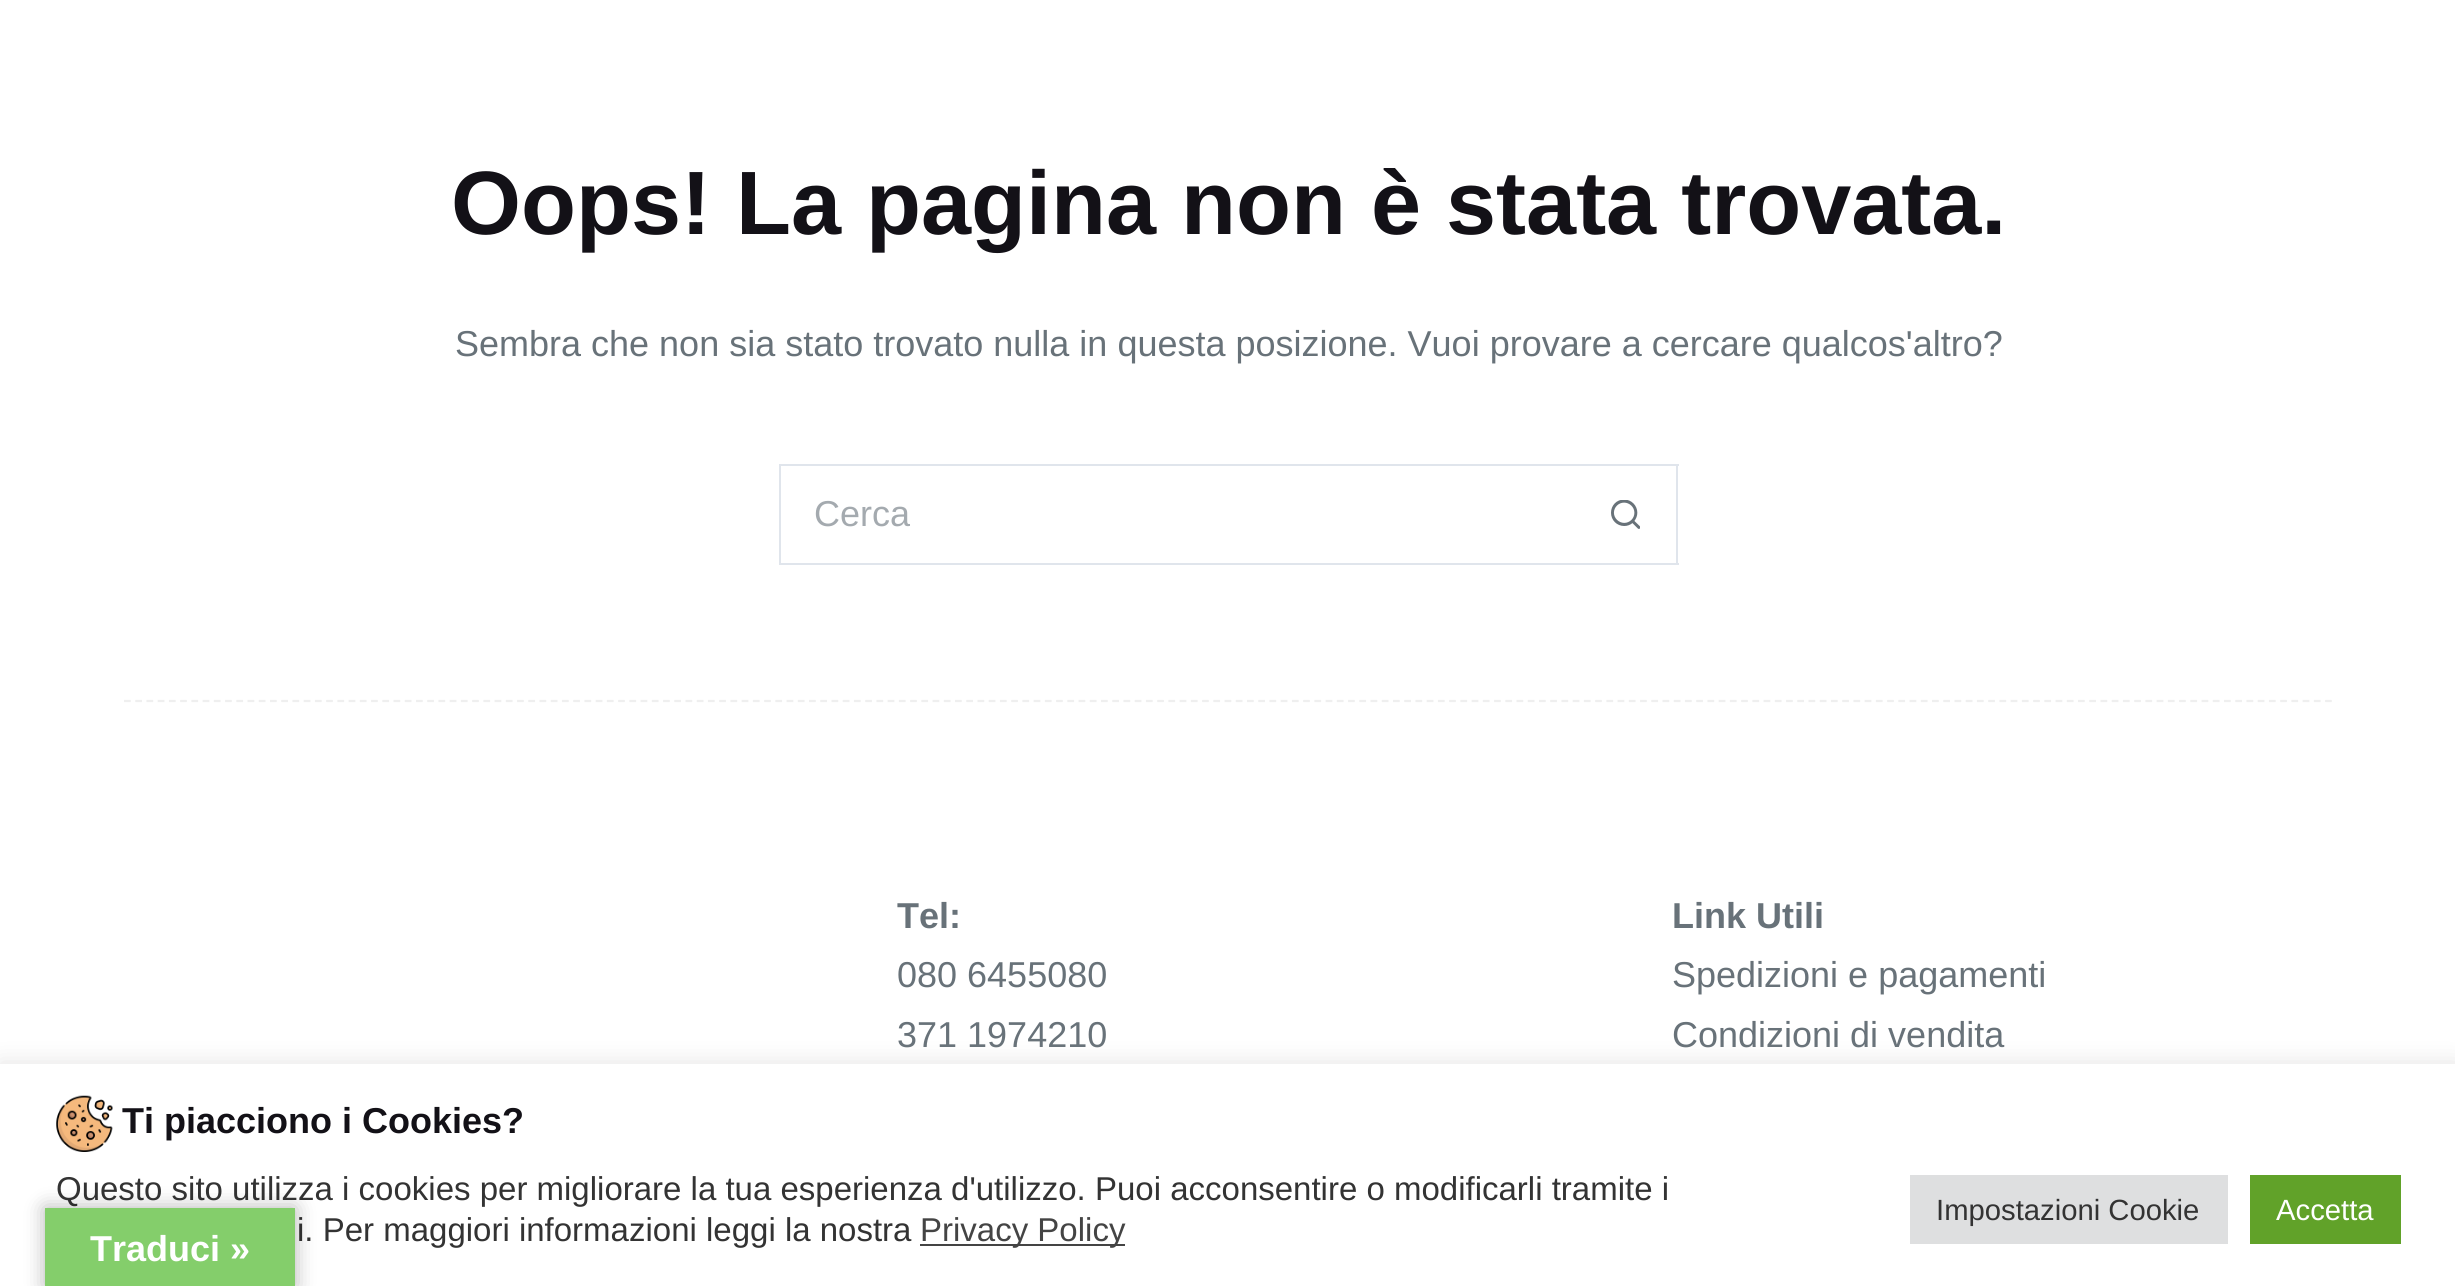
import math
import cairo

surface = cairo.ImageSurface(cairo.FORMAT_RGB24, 2455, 1286)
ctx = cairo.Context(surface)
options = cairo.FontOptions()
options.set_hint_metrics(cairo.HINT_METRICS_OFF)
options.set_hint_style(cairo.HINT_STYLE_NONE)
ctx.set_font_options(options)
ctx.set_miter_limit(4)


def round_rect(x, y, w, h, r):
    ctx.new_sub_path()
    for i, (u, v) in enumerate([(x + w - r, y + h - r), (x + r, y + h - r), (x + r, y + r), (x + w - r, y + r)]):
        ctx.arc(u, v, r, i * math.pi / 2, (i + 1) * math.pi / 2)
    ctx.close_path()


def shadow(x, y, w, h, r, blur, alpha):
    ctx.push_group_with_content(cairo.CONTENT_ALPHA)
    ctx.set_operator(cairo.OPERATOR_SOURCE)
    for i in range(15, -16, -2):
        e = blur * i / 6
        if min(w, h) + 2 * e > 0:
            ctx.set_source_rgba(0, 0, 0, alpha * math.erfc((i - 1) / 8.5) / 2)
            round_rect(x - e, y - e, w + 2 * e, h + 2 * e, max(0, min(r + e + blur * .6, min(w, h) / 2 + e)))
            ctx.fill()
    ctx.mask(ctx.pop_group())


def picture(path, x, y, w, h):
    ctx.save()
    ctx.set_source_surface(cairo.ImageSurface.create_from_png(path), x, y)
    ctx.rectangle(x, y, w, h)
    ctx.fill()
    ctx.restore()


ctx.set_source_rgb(1, 1, 1)
ctx.paint()
ctx.select_font_face("Liberation Sans", cairo.FONT_SLANT_NORMAL, cairo.FONT_WEIGHT_BOLD)
ctx.set_font_size(90)
ctx.set_source_rgb(0.075, 0.067, 0.09)
ctx.move_to(451, 234)
ctx.show_text("Oops! La pagina non è stata trovata.")
ctx.select_font_face("Liberation Sans")
ctx.set_font_size(36)
ctx.set_source_rgb(0.408, 0.447, 0.475)
ctx.move_to(455, 356)
ctx.show_text("Sembra che non sia stato trovato nulla in questa posizione. Vuoi provare a cercare qualcos'altro?")
ctx.set_source_rgb(0.878, 0.898, 0.922)
ctx.rectangle(779, 464, 900, 2)
ctx.fill()
ctx.rectangle(779, 563, 798, 2)
ctx.fill()
ctx.rectangle(779, 464, 2, 101)
ctx.fill()
ctx.set_source_rgb(0.643, 0.667, 0.686)
ctx.move_to(814, 526)
ctx.show_text("Cerca")
ctx.set_source_rgb(0.878, 0.898, 0.922)
ctx.rectangle(1676, 464, 2, 101)
ctx.fill()
ctx.rectangle(1577, 563, 102, 2)
ctx.fill()
picture("img1.png", 1611, 500, 29, 29)
ctx.new_path()
ctx.move_to(124, 701)
ctx.line_to(2333, 701)
ctx.set_source_rgb(0.937, 0.937, 0.937)
ctx.set_line_width(2.2)
ctx.set_dash([6.75, 4.48])
ctx.stroke()
ctx.select_font_face("Liberation Sans", cairo.FONT_SLANT_NORMAL, cairo.FONT_WEIGHT_BOLD)
ctx.set_source_rgb(0.408, 0.447, 0.475)
ctx.move_to(897, 928)
ctx.show_text("Tel:")
ctx.select_font_face("Liberation Sans")
ctx.move_to(897, 987)
ctx.show_text("080 6455080")
ctx.move_to(897, 1047)
ctx.show_text("371 1974210")
ctx.select_font_face("Liberation Sans", cairo.FONT_SLANT_NORMAL, cairo.FONT_WEIGHT_BOLD)
ctx.move_to(1672, 928)
ctx.show_text("Link Utili")
ctx.select_font_face("Liberation Sans")
ctx.move_to(1672, 987)
ctx.show_text("Spedizioni e pagamenti")
ctx.move_to(1672, 1047)
ctx.show_text("Condizioni di vendita")
ctx.set_source_rgb(0.675, 0.671, 0.671)
shadow(0, 1062, 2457, 223, 0, 11, 0.3)
ctx.set_source_rgb(1, 1, 1)
ctx.rectangle(0, 1064, 2455, 222)
ctx.fill()
picture("img2.png", 56, 1095, 57, 57)
ctx.select_font_face("Liberation Sans", cairo.FONT_SLANT_NORMAL, cairo.FONT_WEIGHT_BOLD)
ctx.set_source_rgb(0.075, 0.067, 0.09)
ctx.move_to(122, 1133)
ctx.show_text("Ti piacciono i Cookies?")
ctx.select_font_face("Liberation Sans")
ctx.set_font_size(33)
ctx.set_source_rgb(0.2, 0.2, 0.2)
ctx.move_to(56, 1200)
ctx.show_text("Questo sito utilizza i cookies per migliorare la tua esperienza d'utilizzo. Puoi acconsentire o modificarli tramite i")
ctx.move_to(297, 1241)
ctx.show_text("i. Per maggiori informazioni leggi la nostra")
ctx.set_source_rgb(0.267, 0.267, 0.267)
ctx.rectangle(920, 1244, 205, 2)
ctx.fill()
ctx.move_to(920, 1241)
ctx.show_text("Privacy Policy")
ctx.set_source_rgb(0.871, 0.875, 0.878)
ctx.rectangle(1910, 1175, 318, 69)
ctx.fill()
ctx.set_font_size(29.25)
ctx.set_source_rgb(0.2, 0.2, 0.2)
ctx.move_to(1936, 1220)
ctx.show_text("Impostazioni Cookie")
ctx.set_source_rgb(0.38, 0.635, 0.161)
ctx.rectangle(2250, 1175, 151, 69)
ctx.fill()
ctx.set_source_rgb(1, 1, 1)
ctx.move_to(2276, 1220)
ctx.show_text("Accetta")
ctx.set_source_rgb(0, 0, 0)
shadow(45, 1208, 250, 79, 0, 10, 0.3)
ctx.set_source_rgb(0.518, 0.808, 0.42)
ctx.rectangle(45, 1208, 250, 78)
ctx.fill()
ctx.select_font_face("Liberation Sans", cairo.FONT_SLANT_NORMAL, cairo.FONT_WEIGHT_BOLD)
ctx.set_font_size(36)
ctx.set_source_rgb(1, 1, 1)
ctx.move_to(90, 1261)
ctx.show_text("Traduci »")
surface.write_to_png("page.png")
